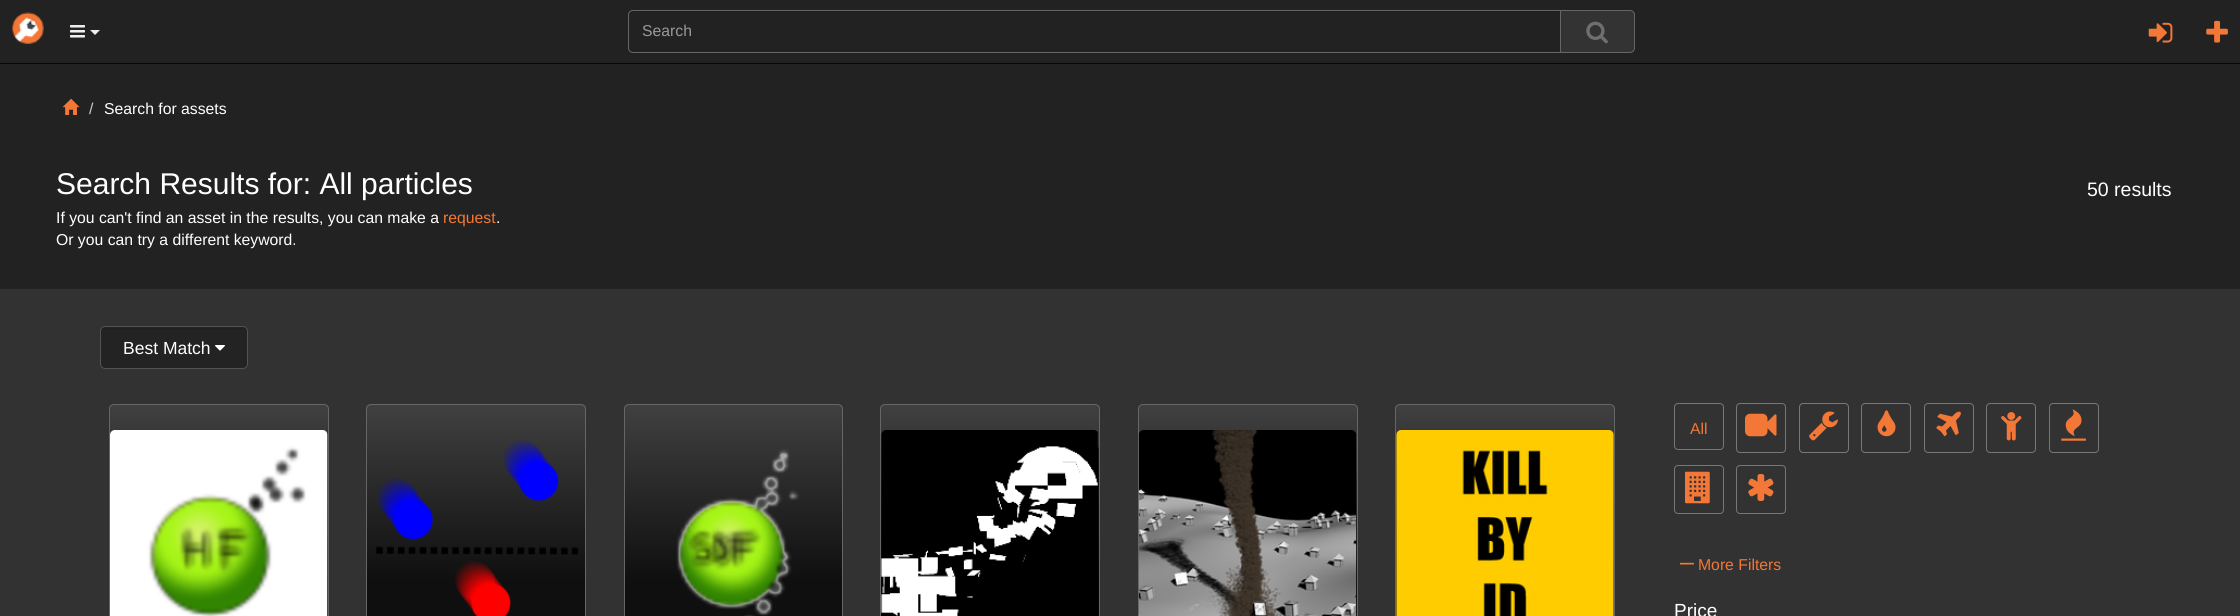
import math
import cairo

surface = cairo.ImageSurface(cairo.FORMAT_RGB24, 2240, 616)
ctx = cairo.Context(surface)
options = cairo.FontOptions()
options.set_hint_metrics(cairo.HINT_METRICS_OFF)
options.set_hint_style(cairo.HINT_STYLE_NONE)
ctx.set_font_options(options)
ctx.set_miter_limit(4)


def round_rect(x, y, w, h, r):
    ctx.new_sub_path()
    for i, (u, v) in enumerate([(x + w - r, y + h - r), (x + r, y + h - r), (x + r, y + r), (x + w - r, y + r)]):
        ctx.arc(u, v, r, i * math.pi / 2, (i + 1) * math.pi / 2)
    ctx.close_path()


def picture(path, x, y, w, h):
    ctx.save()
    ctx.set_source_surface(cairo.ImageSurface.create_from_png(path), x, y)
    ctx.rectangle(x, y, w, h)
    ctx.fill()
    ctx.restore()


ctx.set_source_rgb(0.133, 0.133, 0.133)
ctx.paint()
ctx.set_source_rgb(0.031, 0.031, 0.031)
ctx.rectangle(0, 63, 2240, 1)
ctx.fill()
picture("img1.png", 12, 12, 32, 32)
picture("img2.png", 70, 25, 15, 13)
ctx.set_source_rgb(0.933, 0.933, 0.933)
ctx.new_path()
ctx.move_to(90, 30)
ctx.line_to(100, 30)
ctx.line_to(95, 35)
ctx.close_path()
ctx.fill()
ctx.set_source_rgb(0.122, 0.122, 0.122)
ctx.new_path()
ctx.move_to(632, 12)
ctx.line_to(1560, 12)
ctx.line_to(1560, 11)
ctx.line_to(633, 11)
ctx.curve_to(630, 11, 629, 13, 629, 16)
ctx.curve_to(629, 14, 630, 12, 632, 12)
ctx.close_path()
ctx.fill()
ctx.new_path()
ctx.move_to(633, 10.5)
ctx.line_to(1560.5, 10.5)
ctx.line_to(1560.5, 52.5)
ctx.line_to(633, 52.5)
ctx.curve_to(630.5, 52.5, 628.5, 50.5, 628.5, 48)
ctx.line_to(628.5, 15)
ctx.curve_to(628.5, 12.5, 630.5, 10.5, 633, 10.5)
ctx.close_path()
ctx.set_source_rgb(0.4, 0.4, 0.4)
ctx.set_line_width(1)
ctx.stroke()
ctx.select_font_face("Liberation Sans")
ctx.set_font_size(15.75)
ctx.set_source_rgb(0.6, 0.6, 0.6)
ctx.move_to(642, 36)
ctx.show_text("Search")
ctx.set_source_rgb(0.2, 0.2, 0.2)
ctx.new_path()
ctx.move_to(1560.5, 10.5)
ctx.line_to(1630, 10.5)
ctx.curve_to(1632.5, 10.5, 1634.5, 12.5, 1634.5, 15)
ctx.line_to(1634.5, 48)
ctx.curve_to(1634.5, 50.5, 1632.5, 52.5, 1630, 52.5)
ctx.line_to(1560.5, 52.5)
ctx.close_path()
ctx.fill_preserve()
ctx.set_source_rgb(0.4, 0.4, 0.4)
ctx.stroke()
picture("img3.png", 1586, 21, 22, 23)
picture("img4.png", 2148, 22, 25, 21)
picture("img5.png", 2206, 20, 22, 23)
picture("img6.png", 62, 98, 18, 17)
ctx.set_source_rgb(0.8, 0.8, 0.8)
ctx.move_to(89, 114)
ctx.show_text("/")
ctx.set_source_rgb(1, 1, 1)
ctx.move_to(104, 114)
ctx.show_text("Search for assets")
ctx.set_font_size(30)
ctx.move_to(56, 194)
ctx.show_text("Search Results for: All particles")
ctx.set_font_size(19.5)
ctx.move_to(2087, 196)
ctx.show_text("50 results")
ctx.set_font_size(15.75)
ctx.move_to(56, 223)
ctx.show_text("If you can't find an asset in the results, you can make a")
ctx.set_source_rgb(0.953, 0.467, 0.212)
ctx.move_to(443, 223)
ctx.show_text("request")
ctx.set_source_rgb(1, 1, 1)
ctx.move_to(496, 223)
ctx.show_text(".")
ctx.move_to(56, 245)
ctx.show_text("Or you can try a different keyword.")
ctx.set_source_rgb(0.196, 0.196, 0.196)
ctx.rectangle(0, 289, 2240, 327)
ctx.fill()
ctx.set_source_rgb(0.137, 0.137, 0.137)
round_rect(100, 326, 148, 43, 5)
ctx.fill()
ctx.set_source_rgb(0.125, 0.125, 0.125)
ctx.new_path()
ctx.move_to(105, 329)
ctx.line_to(243, 329)
ctx.line_to(246, 330)
ctx.curve_to(245, 329, 244, 328, 242, 328)
ctx.line_to(105, 328)
ctx.curve_to(103, 328, 101, 330, 101, 332)
ctx.curve_to(101, 330, 103, 329, 105, 329)
ctx.close_path()
ctx.fill()
round_rect(100.5, 326.5, 147, 42, 4.5)
ctx.set_source_rgb(0.325, 0.325, 0.325)
ctx.stroke()
ctx.set_font_size(17.5)
ctx.set_source_rgb(1, 1, 1)
ctx.move_to(123, 354)
ctx.show_text("Best Match")
picture("img7.png", 215, 345, 10, 6)
ctx.save()
round_rect(109, 404, 220, 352, 5)
ctx.clip()
gradient = cairo.LinearGradient(219, 405, 219, 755)
gradient.add_color_stop_rgba(0, 0.251, 0.251, 0.251, 1)
gradient.add_color_stop_rgba(0.5, 0.059, 0.059, 0.059, 1)
ctx.set_source(gradient)
ctx.rectangle(109, 405, 220, 211)
ctx.fill()
ctx.restore()
round_rect(109.5, 404.5, 219, 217, 4.5)
ctx.set_source_rgb(0.4, 0.4, 0.4)
ctx.stroke()
picture("img8.png", 110, 430, 218, 186)
ctx.save()
round_rect(366, 404, 220, 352, 5)
ctx.clip()
gradient = cairo.LinearGradient(476, 405, 476, 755)
gradient.add_color_stop_rgba(0, 0.251, 0.251, 0.251, 1)
gradient.add_color_stop_rgba(0.5, 0.059, 0.059, 0.059, 1)
ctx.set_source(gradient)
ctx.rectangle(366, 405, 220, 211)
ctx.fill()
ctx.restore()
round_rect(366.5, 404.5, 219, 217, 4.5)
ctx.stroke()
picture("img9.png", 376, 439, 203, 177)
ctx.save()
round_rect(624, 404, 219, 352, 5)
ctx.clip()
gradient = cairo.LinearGradient(733, 405, 733, 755)
gradient.add_color_stop_rgba(0, 0.251, 0.251, 0.251, 1)
gradient.add_color_stop_rgba(0.5, 0.059, 0.059, 0.059, 1)
ctx.set_source(gradient)
ctx.rectangle(624, 405, 219, 211)
ctx.fill()
ctx.restore()
round_rect(624.5, 404.5, 218, 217, 4.5)
ctx.stroke()
picture("img10.png", 676, 449, 123, 167)
ctx.save()
round_rect(880, 404, 220, 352, 5)
ctx.clip()
gradient = cairo.LinearGradient(990, 405, 990, 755)
gradient.add_color_stop_rgba(0, 0.251, 0.251, 0.251, 1)
gradient.add_color_stop_rgba(0.5, 0.059, 0.059, 0.059, 1)
ctx.set_source(gradient)
ctx.rectangle(880, 405, 220, 211)
ctx.fill()
ctx.restore()
round_rect(880.5, 404.5, 219, 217, 4.5)
ctx.stroke()
picture("img11.png", 881, 430, 218, 186)
ctx.save()
round_rect(1138, 404, 220, 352, 5)
ctx.clip()
gradient = cairo.LinearGradient(1248, 405, 1248, 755)
gradient.add_color_stop_rgba(0, 0.251, 0.251, 0.251, 1)
gradient.add_color_stop_rgba(0.5, 0.059, 0.059, 0.059, 1)
ctx.set_source(gradient)
ctx.rectangle(1138, 405, 220, 211)
ctx.fill()
ctx.restore()
round_rect(1138.5, 404.5, 219, 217, 4.5)
ctx.stroke()
picture("img12.png", 1138, 430, 219, 186)
ctx.save()
round_rect(1395, 404, 220, 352, 5)
ctx.clip()
gradient = cairo.LinearGradient(1505, 405, 1505, 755)
gradient.add_color_stop_rgba(0, 0.251, 0.251, 0.251, 1)
gradient.add_color_stop_rgba(0.5, 0.059, 0.059, 0.059, 1)
ctx.set_source(gradient)
ctx.rectangle(1395, 405, 220, 211)
ctx.fill()
ctx.restore()
round_rect(1395.5, 404.5, 219, 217, 4.5)
ctx.stroke()
picture("img13.png", 1396, 430, 218, 186)
round_rect(1674.5, 403.5, 49, 46, 3.5)
ctx.set_source_rgb(0.467, 0.467, 0.467)
ctx.stroke()
ctx.set_font_size(15.75)
ctx.set_source_rgb(0.953, 0.467, 0.212)
ctx.move_to(1690, 434)
ctx.show_text("All")
round_rect(1736.5, 403.5, 49, 49, 3.5)
ctx.set_source_rgb(0.467, 0.467, 0.467)
ctx.stroke()
picture("img14.png", 1745, 413, 32, 24)
round_rect(1799.5, 403.5, 49, 49, 3.5)
ctx.stroke()
picture("img15.png", 1809, 411, 29, 30)
round_rect(1861.5, 403.5, 49, 49, 3.5)
ctx.stroke()
picture("img16.png", 1877, 410, 19, 27)
round_rect(1924.5, 403.5, 49, 49, 3.5)
ctx.stroke()
picture("img17.png", 1936, 411, 25, 26)
round_rect(1986.5, 403.5, 49, 49, 3.5)
ctx.stroke()
picture("img18.png", 2001, 412, 21, 29)
round_rect(2049.5, 403.5, 49, 49, 3.5)
ctx.stroke()
picture("img19.png", 2061, 409, 25, 32)
round_rect(1674.5, 465.5, 49, 48, 3.5)
ctx.stroke()
picture("img20.png", 1685, 471, 25, 33)
round_rect(1736.5, 465.5, 49, 48, 3.5)
ctx.stroke()
picture("img21.png", 1748, 474, 26, 27)
ctx.set_font_size(25)
ctx.set_source_rgb(0.953, 0.467, 0.212)
ctx.move_to(1680, 570)
ctx.show_text("–")
ctx.set_font_size(15.75)
ctx.move_to(1698, 570)
ctx.show_text("More Filters")
ctx.set_font_size(19)
ctx.set_source_rgb(1, 1, 1)
ctx.move_to(1674, 617)
ctx.show_text("Price")
surface.write_to_png("page.png")
